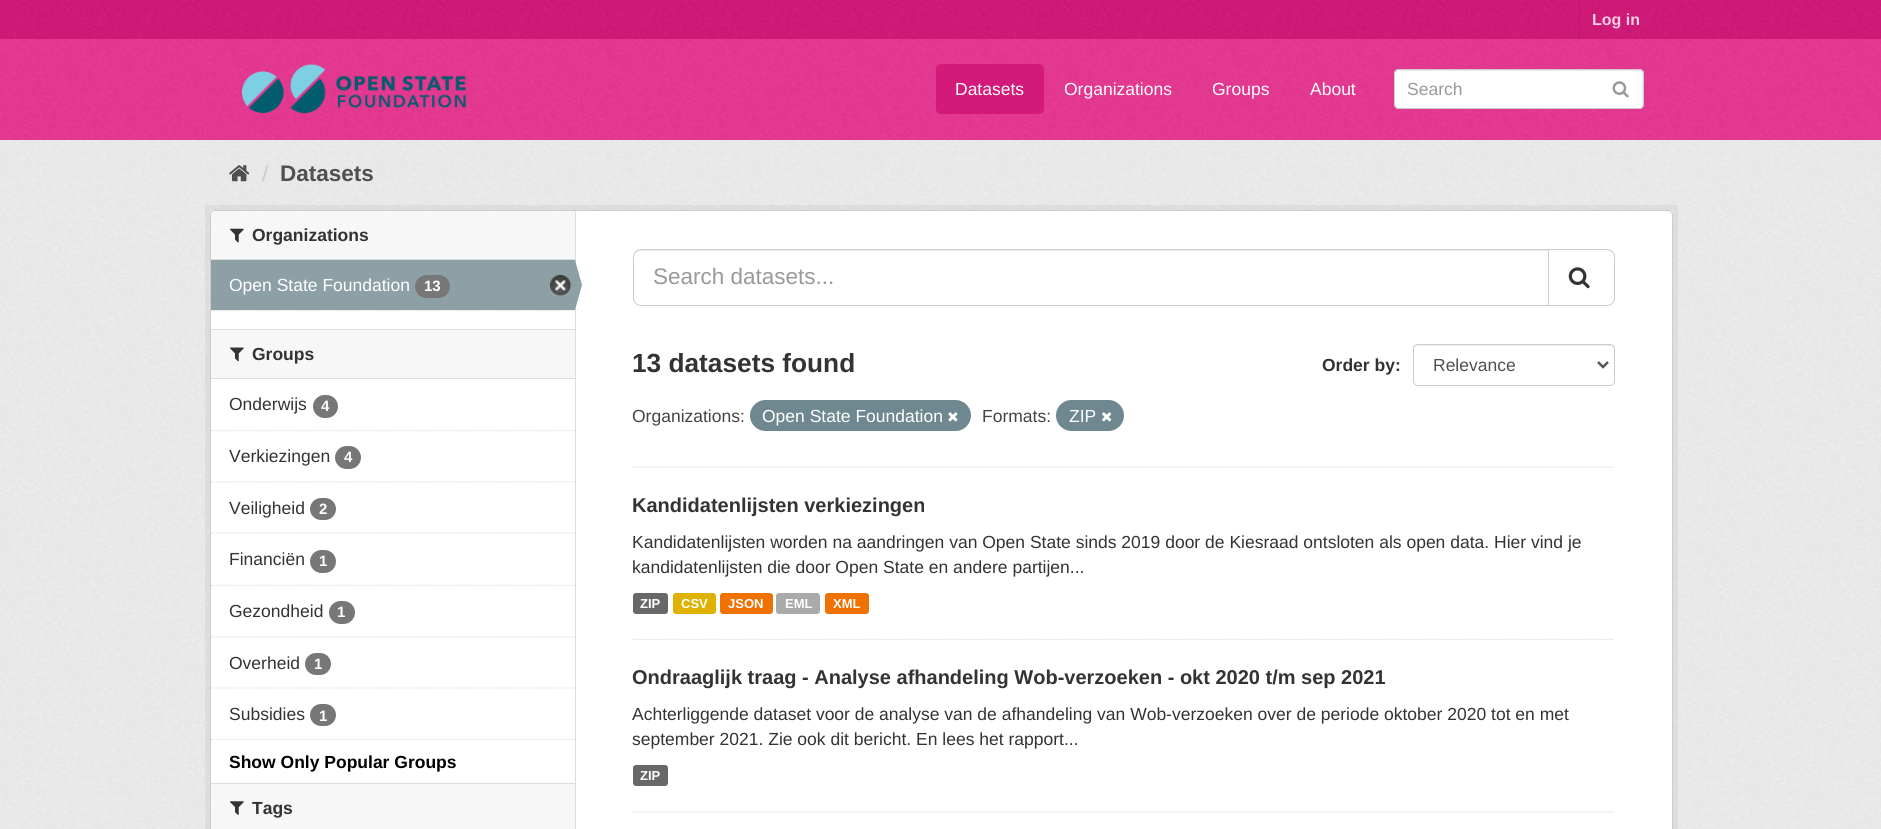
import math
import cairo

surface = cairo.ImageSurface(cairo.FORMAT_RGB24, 1881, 829)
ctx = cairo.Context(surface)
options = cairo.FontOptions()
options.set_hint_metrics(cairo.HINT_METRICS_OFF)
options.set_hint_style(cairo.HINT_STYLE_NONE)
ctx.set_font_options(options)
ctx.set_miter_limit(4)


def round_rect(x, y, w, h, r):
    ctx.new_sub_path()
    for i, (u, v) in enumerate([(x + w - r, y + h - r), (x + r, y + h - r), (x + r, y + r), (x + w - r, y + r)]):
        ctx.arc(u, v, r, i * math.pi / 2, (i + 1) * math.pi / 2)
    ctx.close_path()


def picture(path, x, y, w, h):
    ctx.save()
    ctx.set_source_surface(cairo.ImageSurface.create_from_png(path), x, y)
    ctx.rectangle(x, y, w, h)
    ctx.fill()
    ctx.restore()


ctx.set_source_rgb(0.827, 0.098, 0.475)
ctx.paint()
picture("img1.png", 0, 0, 1881, 39)
ctx.set_source_rgb(0.737, 0.09, 0.424)
ctx.rectangle(1579, 0, 1, 39)
ctx.fill()
ctx.select_font_face("Liberation Sans", cairo.FONT_SLANT_NORMAL, cairo.FONT_WEIGHT_BOLD)
ctx.set_font_size(16)
ctx.set_source_rgb(0.976, 0.804, 0.894)
ctx.move_to(1592, 25)
ctx.show_text("Log in")
ctx.set_source_rgb(0.906, 0.22, 0.573)
ctx.rectangle(0, 39, 1881, 101)
ctx.fill()
picture("img2.png", 0, 39, 1881, 101)
picture("img3.png", 241, 64, 226, 50)
ctx.set_source_rgb(0.827, 0.098, 0.475)
round_rect(936, 64, 108, 50, 5)
ctx.fill()
ctx.select_font_face("Liberation Sans")
ctx.set_font_size(17.5)
ctx.set_source_rgb(1, 1, 1)
ctx.move_to(955, 95)
ctx.show_text("Datasets")
ctx.move_to(1064, 95)
ctx.show_text("Organizations")
ctx.move_to(1212, 95)
ctx.show_text("Groups")
ctx.move_to(1310, 95)
ctx.show_text("About")
round_rect(1394, 69, 250, 40, 5)
ctx.fill()
ctx.set_source_rgb(0.925, 0.925, 0.925)
ctx.new_path()
ctx.move_to(1399, 71)
ctx.line_to(1639, 71)
ctx.curve_to(1644, 71, 1642, 83, 1642, 85)
ctx.line_to(1642, 107)
ctx.curve_to(1642, 106, 1643, 105, 1643, 104)
ctx.line_to(1643, 74)
ctx.curve_to(1643, 72, 1641, 70, 1639, 70)
ctx.line_to(1399, 70)
ctx.curve_to(1397, 70, 1395, 72, 1395, 74)
ctx.line_to(1395, 75)
ctx.curve_to(1395, 73, 1397, 71, 1399, 71)
ctx.close_path()
ctx.fill()
round_rect(1394.5, 69.5, 249, 39, 4.5)
ctx.set_source_rgb(0.8, 0.8, 0.8)
ctx.set_line_width(1)
ctx.stroke()
ctx.set_source_rgb(0.6, 0.6, 0.6)
ctx.move_to(1407, 95)
ctx.show_text("Search")
picture("img4.png", 1612, 81, 17, 17)
ctx.set_source_rgb(0.933, 0.933, 0.933)
ctx.rectangle(0, 140, 1881, 689)
ctx.fill()
picture("img5.png", 0, 140, 1881, 689)
picture("img6.png", 229, 165, 21, 17)
ctx.set_font_size(22.5)
ctx.set_source_rgb(0.8, 0.8, 0.8)
ctx.move_to(262, 181)
ctx.show_text("/")
ctx.select_font_face("Liberation Sans", cairo.FONT_SLANT_NORMAL, cairo.FONT_WEIGHT_BOLD)
ctx.set_source_rgb(0.314, 0.314, 0.314)
ctx.move_to(280, 181)
ctx.show_text("Datasets")
ctx.rectangle(207.5, 207.5, 1468, 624)
ctx.set_source_rgba(0, 0, 0, 0.05)
ctx.set_line_width(5)
ctx.stroke()
ctx.set_source_rgb(1, 1, 1)
round_rect(210.5, 210.5, 1462, 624, 4.5)
ctx.fill_preserve()
ctx.set_source_rgb(0.8, 0.8, 0.8)
ctx.set_line_width(1)
ctx.stroke()
ctx.set_source_rgb(0.965, 0.965, 0.965)
ctx.new_path()
ctx.move_to(215, 211)
ctx.line_to(575, 211)
ctx.line_to(575, 260)
ctx.line_to(211, 260)
ctx.line_to(211, 215)
ctx.curve_to(211, 213, 213, 211, 215, 211)
ctx.close_path()
ctx.fill()
ctx.set_source_rgb(0.867, 0.867, 0.867)
ctx.rectangle(211, 259, 364, 1)
ctx.fill()
picture("img7.png", 230, 228, 14, 15)
ctx.set_font_size(17.5)
ctx.set_source_rgb(0.2, 0.2, 0.2)
ctx.move_to(252, 241)
ctx.show_text("Organizations")
ctx.new_path()
ctx.move_to(211, 310.5)
ctx.line_to(575, 310.5)
ctx.set_source_rgb(0.867, 0.867, 0.867)
ctx.set_line_width(1.2)
ctx.set_dash([1.25, 1.25])
ctx.stroke()
ctx.set_source_rgb(0.549, 0.627, 0.651)
ctx.rectangle(211, 260, 364, 50)
ctx.fill()
ctx.select_font_face("Liberation Sans")
ctx.set_source_rgb(1, 1, 1)
ctx.move_to(229, 291)
ctx.show_text("Open State Foundation")
ctx.set_source_rgb(0.467, 0.467, 0.467)
round_rect(415, 275, 35, 23, 11.5)
ctx.fill()
ctx.select_font_face("Liberation Sans", cairo.FONT_SLANT_NORMAL, cairo.FONT_WEIGHT_BOLD)
ctx.set_font_size(15)
ctx.set_source_rgb(1, 1, 1)
ctx.move_to(424, 291)
ctx.show_text("13")
picture("img8.png", 550, 275, 22, 22)
ctx.set_source_rgb(0.867, 0.867, 0.867)
ctx.rectangle(575, 211, 1, 618)
ctx.fill()
ctx.set_source_rgb(0.549, 0.627, 0.651)
ctx.new_path()
ctx.move_to(575, 310)
ctx.line_to(575, 260)
ctx.line_to(582, 285)
ctx.close_path()
ctx.fill()
ctx.set_source_rgb(0.965, 0.965, 0.965)
ctx.rectangle(211, 330, 364, 48)
ctx.fill()
ctx.set_source_rgb(0.867, 0.867, 0.867)
ctx.rectangle(211, 329, 364, 1)
ctx.fill()
ctx.rectangle(211, 378, 364, 1)
ctx.fill()
picture("img9.png", 230, 347, 14, 15)
ctx.set_font_size(17.5)
ctx.set_source_rgb(0.2, 0.2, 0.2)
ctx.move_to(252, 360)
ctx.show_text("Groups")
ctx.new_path()
ctx.move_to(211, 430.5)
ctx.line_to(575, 430.5)
ctx.set_source_rgb(0.867, 0.867, 0.867)
ctx.stroke()
ctx.select_font_face("Liberation Sans")
ctx.set_source_rgb(0.2, 0.2, 0.2)
ctx.move_to(229, 410)
ctx.show_text("Onderwijs")
ctx.set_source_rgb(0.467, 0.467, 0.467)
round_rect(313, 395, 25, 23, 11.5)
ctx.fill()
ctx.select_font_face("Liberation Sans", cairo.FONT_SLANT_NORMAL, cairo.FONT_WEIGHT_BOLD)
ctx.set_font_size(15)
ctx.set_source_rgb(1, 1, 1)
ctx.move_to(321, 411)
ctx.show_text("4")
ctx.new_path()
ctx.move_to(211, 482)
ctx.line_to(575, 482)
ctx.set_source_rgb(0.867, 0.867, 0.867)
ctx.stroke()
ctx.select_font_face("Liberation Sans")
ctx.set_font_size(17.5)
ctx.set_source_rgb(0.2, 0.2, 0.2)
ctx.move_to(229, 462)
ctx.show_text("Verkiezingen")
ctx.set_source_rgb(0.467, 0.467, 0.467)
round_rect(335, 446, 26, 23, 11.5)
ctx.fill()
ctx.select_font_face("Liberation Sans", cairo.FONT_SLANT_NORMAL, cairo.FONT_WEIGHT_BOLD)
ctx.set_font_size(15)
ctx.set_source_rgb(1, 1, 1)
ctx.move_to(344, 462)
ctx.show_text("4")
ctx.new_path()
ctx.move_to(211, 533)
ctx.line_to(575, 533)
ctx.set_source_rgb(0.867, 0.867, 0.867)
ctx.stroke()
ctx.select_font_face("Liberation Sans")
ctx.set_font_size(17.5)
ctx.set_source_rgb(0.2, 0.2, 0.2)
ctx.move_to(229, 514)
ctx.show_text("Veiligheid")
ctx.set_source_rgb(0.467, 0.467, 0.467)
round_rect(310, 498, 26, 22, 11)
ctx.fill()
ctx.select_font_face("Liberation Sans", cairo.FONT_SLANT_NORMAL, cairo.FONT_WEIGHT_BOLD)
ctx.set_font_size(15)
ctx.set_source_rgb(1, 1, 1)
ctx.move_to(319, 514)
ctx.show_text("2")
ctx.new_path()
ctx.move_to(211, 585.5)
ctx.line_to(575, 585.5)
ctx.set_source_rgb(0.867, 0.867, 0.867)
ctx.stroke()
ctx.select_font_face("Liberation Sans")
ctx.set_font_size(17.5)
ctx.set_source_rgb(0.2, 0.2, 0.2)
ctx.move_to(229, 565)
ctx.show_text("Financiën")
ctx.set_source_rgb(0.467, 0.467, 0.467)
round_rect(310, 550, 26, 23, 11.5)
ctx.fill()
ctx.select_font_face("Liberation Sans", cairo.FONT_SLANT_NORMAL, cairo.FONT_WEIGHT_BOLD)
ctx.set_font_size(15)
ctx.set_source_rgb(1, 1, 1)
ctx.move_to(319, 566)
ctx.show_text("1")
ctx.new_path()
ctx.move_to(211, 637)
ctx.line_to(575, 637)
ctx.set_source_rgb(0.867, 0.867, 0.867)
ctx.stroke()
ctx.select_font_face("Liberation Sans")
ctx.set_font_size(17.5)
ctx.set_source_rgb(0.2, 0.2, 0.2)
ctx.move_to(229, 617)
ctx.show_text("Gezondheid")
ctx.set_source_rgb(0.467, 0.467, 0.467)
round_rect(329, 601, 26, 23, 11.5)
ctx.fill()
ctx.select_font_face("Liberation Sans", cairo.FONT_SLANT_NORMAL, cairo.FONT_WEIGHT_BOLD)
ctx.set_font_size(15)
ctx.set_source_rgb(1, 1, 1)
ctx.move_to(337, 617)
ctx.show_text("1")
ctx.new_path()
ctx.move_to(211, 688)
ctx.line_to(575, 688)
ctx.set_source_rgb(0.867, 0.867, 0.867)
ctx.stroke()
ctx.select_font_face("Liberation Sans")
ctx.set_font_size(17.5)
ctx.set_source_rgb(0.2, 0.2, 0.2)
ctx.move_to(229, 669)
ctx.show_text("Overheid")
ctx.set_source_rgb(0.467, 0.467, 0.467)
round_rect(305, 653, 26, 22, 11)
ctx.fill()
ctx.select_font_face("Liberation Sans", cairo.FONT_SLANT_NORMAL, cairo.FONT_WEIGHT_BOLD)
ctx.set_font_size(15)
ctx.set_source_rgb(1, 1, 1)
ctx.move_to(314, 669)
ctx.show_text("1")
ctx.select_font_face("Liberation Sans")
ctx.set_font_size(17.5)
ctx.set_source_rgb(0.2, 0.2, 0.2)
ctx.move_to(229, 720)
ctx.show_text("Subsidies")
ctx.set_source_rgb(0.467, 0.467, 0.467)
round_rect(310, 704, 26, 22, 11)
ctx.fill()
ctx.select_font_face("Liberation Sans", cairo.FONT_SLANT_NORMAL, cairo.FONT_WEIGHT_BOLD)
ctx.set_font_size(15)
ctx.set_source_rgb(1, 1, 1)
ctx.move_to(319, 721)
ctx.show_text("1")
ctx.new_path()
ctx.move_to(211, 739.5)
ctx.line_to(575, 739.5)
ctx.set_source_rgb(0.867, 0.867, 0.867)
ctx.stroke()
ctx.set_font_size(17.5)
ctx.set_source_rgb(0, 0, 0)
ctx.move_to(229, 768)
ctx.show_text("Show Only Popular Groups")
ctx.set_source_rgb(0.965, 0.965, 0.965)
ctx.rectangle(211, 784, 364, 45)
ctx.fill()
ctx.set_source_rgb(0.867, 0.867, 0.867)
ctx.rectangle(211, 783, 364, 1)
ctx.fill()
picture("img10.png", 230, 801, 14, 14)
ctx.set_source_rgb(0.2, 0.2, 0.2)
ctx.move_to(252, 814)
ctx.show_text("Tags")
ctx.new_path()
ctx.move_to(632.5, 467)
ctx.line_to(1615, 467)
ctx.set_source_rgb(0.867, 0.867, 0.867)
ctx.stroke()
ctx.set_source_rgb(0.925, 0.925, 0.925)
ctx.new_path()
ctx.move_to(640, 251)
ctx.line_to(1548, 251)
ctx.line_to(1548, 250)
ctx.line_to(640, 250)
ctx.curve_to(635, 250, 634, 254, 634, 258)
ctx.curve_to(634, 254, 637, 251, 640, 251)
ctx.close_path()
ctx.fill()
ctx.new_path()
ctx.move_to(641, 249.5)
ctx.line_to(1548.5, 249.5)
ctx.line_to(1548.5, 305.5)
ctx.line_to(641, 305.5)
ctx.curve_to(637, 305.5, 633.5, 302, 633.5, 298)
ctx.line_to(633.5, 257)
ctx.curve_to(633.5, 253, 637, 249.5, 641, 249.5)
ctx.close_path()
ctx.set_source_rgb(0.8, 0.8, 0.8)
ctx.set_line_width(1)
ctx.set_dash([])
ctx.stroke()
ctx.select_font_face("Liberation Sans")
ctx.set_font_size(22.5)
ctx.set_source_rgb(0.6, 0.6, 0.6)
ctx.move_to(653, 284)
ctx.show_text("Search datasets...")
ctx.set_source_rgb(1, 1, 1)
ctx.new_path()
ctx.move_to(1548.5, 249.5)
ctx.line_to(1607, 249.5)
ctx.curve_to(1611, 249.5, 1614.5, 253, 1614.5, 257)
ctx.line_to(1614.5, 298)
ctx.curve_to(1614.5, 302, 1611, 305.5, 1607, 305.5)
ctx.line_to(1548.5, 305.5)
ctx.close_path()
ctx.fill_preserve()
ctx.set_source_rgb(0.8, 0.8, 0.8)
ctx.stroke()
picture("img11.png", 1568, 267, 22, 22)
ctx.select_font_face("Liberation Sans", cairo.FONT_SLANT_NORMAL, cairo.FONT_WEIGHT_BOLD)
ctx.set_font_size(26.25)
ctx.set_source_rgb(0.2, 0.2, 0.2)
ctx.move_to(632, 372)
ctx.show_text("13 datasets found")
ctx.set_font_size(17.5)
ctx.move_to(1322, 371)
ctx.show_text("Order by:")
ctx.set_source_rgb(0.925, 0.925, 0.925)
ctx.new_path()
ctx.move_to(1418, 346)
ctx.line_to(1610, 346)
ctx.curve_to(1612, 346, 1614, 348, 1614, 350)
ctx.line_to(1614, 349)
ctx.curve_to(1614, 347, 1612, 345, 1610, 345)
ctx.line_to(1418, 345)
ctx.curve_to(1416, 345, 1414, 347, 1414, 349)
ctx.line_to(1414, 350)
ctx.curve_to(1414, 348, 1415, 346, 1418, 346)
ctx.close_path()
ctx.fill()
round_rect(1413.5, 344.5, 201, 41, 4.5)
ctx.set_source_rgb(0.8, 0.8, 0.8)
ctx.stroke()
ctx.new_path()
ctx.move_to(1598, 362)
ctx.line_to(1603, 367)
ctx.line_to(1608, 362)
ctx.set_source_rgb(0.333, 0.333, 0.333)
ctx.set_line_width(2.5)
ctx.stroke()
ctx.select_font_face("Liberation Sans")
ctx.set_source_rgb(0.314, 0.314, 0.314)
ctx.move_to(1433, 371)
ctx.show_text("Relevance")
ctx.set_source_rgb(0.267, 0.267, 0.267)
ctx.move_to(632, 422)
ctx.show_text("Organizations:")
ctx.set_source_rgb(0.435, 0.533, 0.565)
round_rect(750, 400, 221, 31, 15.5)
ctx.fill()
ctx.set_source_rgb(1, 1, 1)
ctx.move_to(762, 422)
ctx.show_text("Open State Foundation")
picture("img12.png", 948, 412, 10, 10)
ctx.set_source_rgb(0.267, 0.267, 0.267)
ctx.move_to(982, 422)
ctx.show_text("Formats:")
ctx.set_source_rgb(0.435, 0.533, 0.565)
round_rect(1056, 400, 68, 31, 15.5)
ctx.fill()
ctx.set_source_rgb(1, 1, 1)
ctx.move_to(1069, 422)
ctx.show_text("ZIP")
picture("img13.png", 1102, 412, 10, 10)
ctx.new_path()
ctx.move_to(632.5, 639.5)
ctx.line_to(1615, 639.5)
ctx.set_source_rgb(0.867, 0.867, 0.867)
ctx.set_line_width(1.2)
ctx.set_dash([1.25, 1.25])
ctx.stroke()
ctx.select_font_face("Liberation Sans", cairo.FONT_SLANT_NORMAL, cairo.FONT_WEIGHT_BOLD)
ctx.set_font_size(20)
ctx.set_source_rgb(0.2, 0.2, 0.2)
ctx.move_to(632, 512)
ctx.show_text("Kandidatenlijsten verkiezingen")
ctx.select_font_face("Liberation Sans")
ctx.set_font_size(17.5)
ctx.move_to(632, 548)
ctx.show_text("Kandidatenlijsten worden na aandringen van Open State sinds 2019 door de Kiesraad ontsloten als open data. Hier vind je")
ctx.move_to(632, 573)
ctx.show_text("kandidatenlijsten die door Open State en andere partijen...")
ctx.set_source_rgb(0.408, 0.408, 0.408)
round_rect(633, 593, 35, 21, 3)
ctx.fill()
ctx.select_font_face("Liberation Sans", cairo.FONT_SLANT_NORMAL, cairo.FONT_WEIGHT_BOLD)
ctx.set_font_size(13)
ctx.set_source_rgb(1, 1, 1)
ctx.move_to(640, 608)
ctx.show_text("ZIP")
ctx.set_source_rgb(0.875, 0.694, 0)
round_rect(673, 593, 43, 21, 3)
ctx.fill()
ctx.set_source_rgb(1, 1, 1)
ctx.move_to(681, 608)
ctx.show_text("CSV")
ctx.set_source_rgb(0.937, 0.443, 0)
round_rect(720, 593, 53, 21, 3)
ctx.fill()
ctx.set_source_rgb(1, 1, 1)
ctx.move_to(728, 608)
ctx.show_text("JSON")
ctx.set_source_rgb(0.667, 0.667, 0.667)
round_rect(776, 593, 44, 21, 3)
ctx.fill()
ctx.set_source_rgb(1, 1, 1)
ctx.move_to(785, 608)
ctx.show_text("EML")
ctx.set_source_rgb(0.937, 0.443, 0)
round_rect(825, 593, 44, 21, 3)
ctx.fill()
ctx.set_source_rgb(1, 1, 1)
ctx.move_to(833, 608)
ctx.show_text("XML")
ctx.new_path()
ctx.move_to(632.5, 812)
ctx.line_to(1615, 812)
ctx.set_source_rgb(0.867, 0.867, 0.867)
ctx.stroke()
ctx.set_font_size(20)
ctx.set_source_rgb(0.2, 0.2, 0.2)
ctx.move_to(632, 684)
ctx.show_text("Ondraaglijk traag - Analyse afhandeling Wob-verzoeken - okt 2020 t/m sep 2021")
ctx.select_font_face("Liberation Sans")
ctx.set_font_size(17.5)
ctx.move_to(632, 720)
ctx.show_text("Achterliggende dataset voor de analyse van de afhandeling van Wob-verzoeken over de periode oktober 2020 tot en met")
ctx.move_to(632, 745)
ctx.show_text("september 2021. Zie ook dit bericht. En lees het rapport...")
ctx.set_source_rgb(0.408, 0.408, 0.408)
round_rect(633, 765, 35, 21, 3)
ctx.fill()
ctx.select_font_face("Liberation Sans", cairo.FONT_SLANT_NORMAL, cairo.FONT_WEIGHT_BOLD)
ctx.set_font_size(13)
ctx.set_source_rgb(1, 1, 1)
ctx.move_to(640, 780)
ctx.show_text("ZIP")
surface.write_to_png("page.png")
